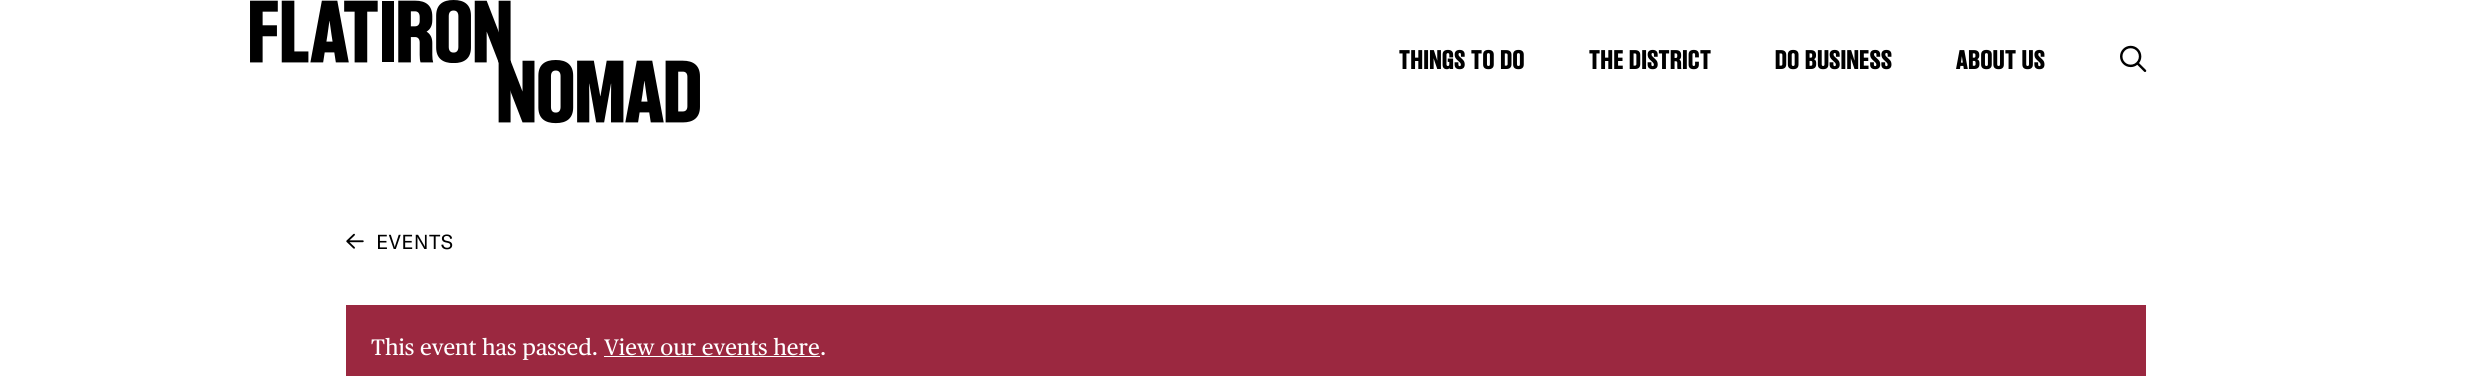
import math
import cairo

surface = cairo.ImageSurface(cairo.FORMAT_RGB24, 2492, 376)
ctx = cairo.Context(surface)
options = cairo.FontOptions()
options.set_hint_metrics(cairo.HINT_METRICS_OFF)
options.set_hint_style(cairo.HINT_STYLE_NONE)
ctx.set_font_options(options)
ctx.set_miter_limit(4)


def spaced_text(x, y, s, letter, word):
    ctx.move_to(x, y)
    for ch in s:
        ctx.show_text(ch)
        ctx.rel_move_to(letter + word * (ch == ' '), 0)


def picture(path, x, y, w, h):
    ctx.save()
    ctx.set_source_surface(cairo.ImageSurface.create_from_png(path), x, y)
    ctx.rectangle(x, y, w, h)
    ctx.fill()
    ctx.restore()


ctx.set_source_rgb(1, 1, 1)
ctx.paint()
picture("img1.png", 250, 0, 261, 63)
picture("img2.png", 498, 60, 202, 64)
ctx.select_font_face("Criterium", cairo.FONT_SLANT_NORMAL, cairo.FONT_WEIGHT_BOLD)
ctx.set_font_size(26.25)
ctx.set_source_rgb(0, 0, 0)
spaced_text(1399, 69, "THINGS TO DO", 0.5, 2)
spaced_text(1589, 69, "THE DISTRICT", 0.5, 2)
spaced_text(1775, 69, "DO BUSINESS", 0.5, 2)
spaced_text(1956, 69, "ABOUT US", 0.5, 2)
picture("img3.png", 2120, 45, 27, 27)
picture("img4.png", 346, 233, 18, 16)
ctx.select_font_face("GT America")
ctx.set_font_size(20)
spaced_text(376, 249, "EVENTS", 0.25, 0)
ctx.set_source_rgb(0.608, 0.157, 0.251)
ctx.rectangle(346, 305, 1800, 71)
ctx.fill()
ctx.select_font_face("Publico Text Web")
ctx.set_font_size(22.5)
ctx.set_source_rgb(1, 1, 1)
ctx.move_to(371, 355)
ctx.show_text("This event has passed. View our events here.")
ctx.rectangle(604, 356, 216, 1)
ctx.fill()
surface.write_to_png("page.png")
